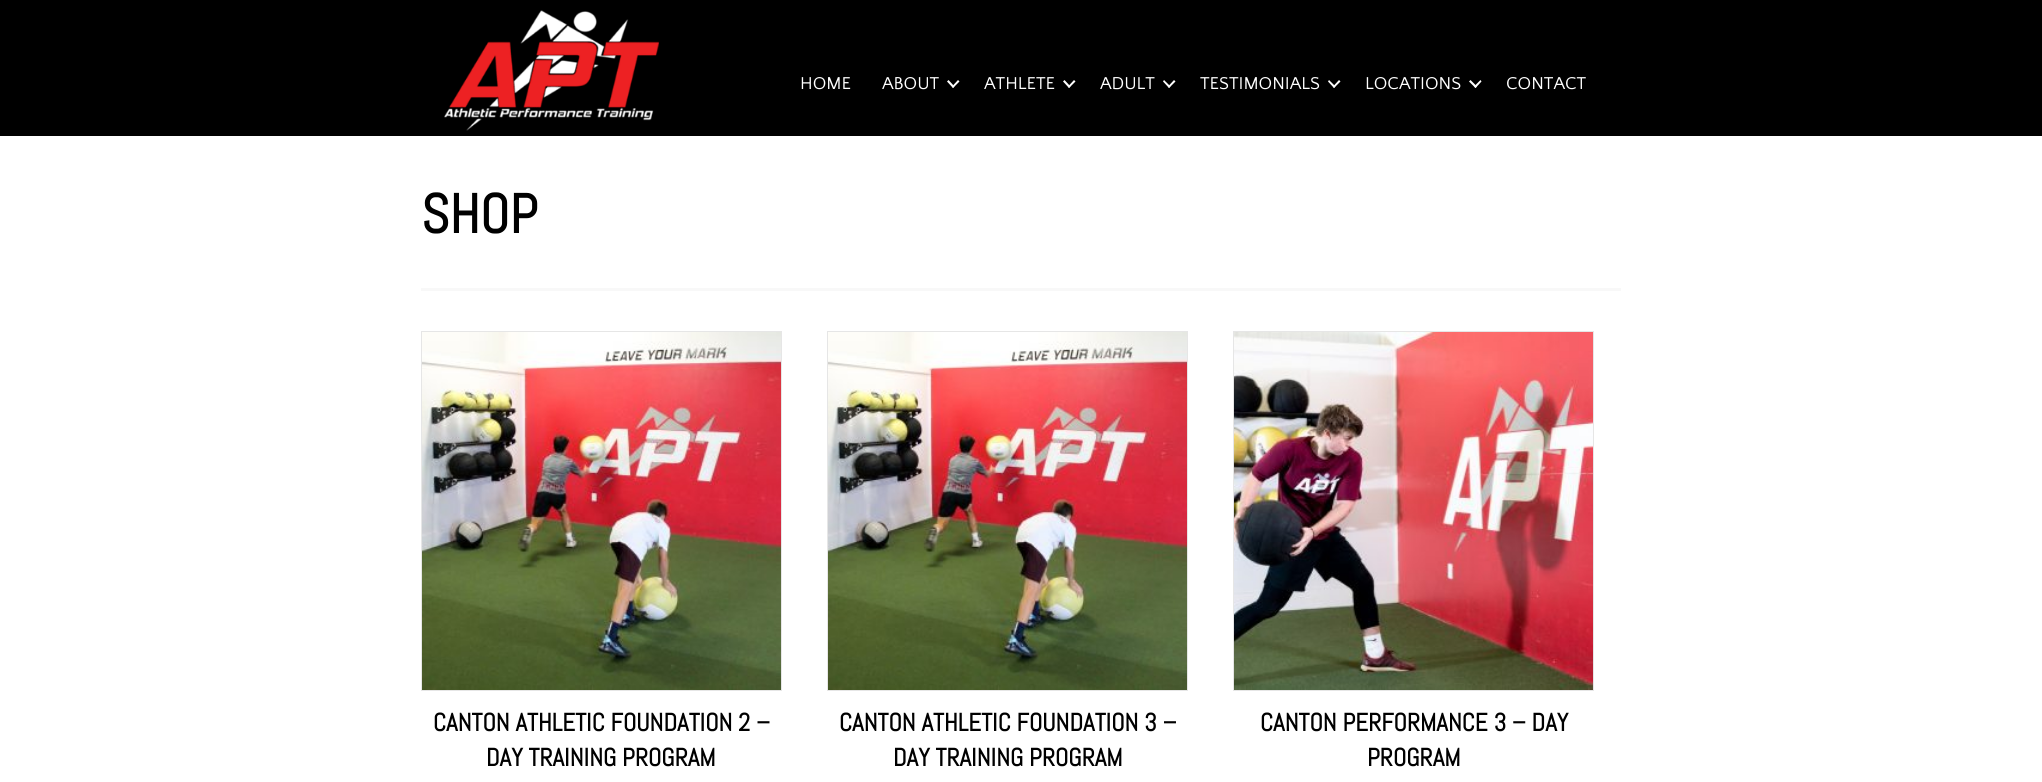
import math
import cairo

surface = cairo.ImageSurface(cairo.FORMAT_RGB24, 2042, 782)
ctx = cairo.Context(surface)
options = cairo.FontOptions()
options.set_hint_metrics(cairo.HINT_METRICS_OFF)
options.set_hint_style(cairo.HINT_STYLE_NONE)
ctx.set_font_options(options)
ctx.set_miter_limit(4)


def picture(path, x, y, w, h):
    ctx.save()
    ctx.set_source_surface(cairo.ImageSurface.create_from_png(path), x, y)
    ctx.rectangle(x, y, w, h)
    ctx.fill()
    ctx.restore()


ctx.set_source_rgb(1, 1, 1)
ctx.paint()
ctx.set_source_rgb(0, 0, 0)
ctx.rectangle(0, 0, 2042, 136)
ctx.fill()
picture("img1.png", 444, 10, 215, 121)
ctx.select_font_face("Quattrocento Sans")
ctx.set_font_size(18)
ctx.set_source_rgb(1, 1, 1)
ctx.move_to(800, 89)
ctx.show_text("HOME")
ctx.move_to(882, 89)
ctx.show_text("ABOUT")
ctx.new_path()
ctx.move_to(958, 80)
ctx.line_to(959.5, 81.5)
ctx.line_to(953, 88)
ctx.line_to(952, 86.5)
ctx.close_path()
ctx.fill()
ctx.new_path()
ctx.move_to(948.5, 80)
ctx.line_to(954.5, 86.5)
ctx.line_to(953, 88)
ctx.line_to(947, 81.5)
ctx.close_path()
ctx.fill()
ctx.move_to(984, 89)
ctx.show_text("ATHLETE")
ctx.new_path()
ctx.move_to(1074, 80)
ctx.line_to(1075.5, 81.5)
ctx.line_to(1069, 88)
ctx.line_to(1068, 86.5)
ctx.close_path()
ctx.fill()
ctx.new_path()
ctx.move_to(1064.5, 80)
ctx.line_to(1070.5, 86.5)
ctx.line_to(1069, 88)
ctx.line_to(1063, 81.5)
ctx.close_path()
ctx.fill()
ctx.move_to(1100, 89)
ctx.show_text("ADULT")
ctx.new_path()
ctx.move_to(1174, 80)
ctx.line_to(1175.5, 81.5)
ctx.line_to(1169, 88)
ctx.line_to(1168, 86.5)
ctx.close_path()
ctx.fill()
ctx.new_path()
ctx.move_to(1164, 80)
ctx.line_to(1170.5, 86.5)
ctx.line_to(1169, 88)
ctx.line_to(1163, 81.5)
ctx.close_path()
ctx.fill()
ctx.move_to(1200, 89)
ctx.show_text("TESTIMONIALS")
ctx.new_path()
ctx.move_to(1339, 80)
ctx.line_to(1340.5, 81.5)
ctx.line_to(1334, 88)
ctx.line_to(1333, 86.5)
ctx.close_path()
ctx.fill()
ctx.new_path()
ctx.move_to(1329, 80)
ctx.line_to(1335.5, 86.5)
ctx.line_to(1334, 88)
ctx.line_to(1328, 81.5)
ctx.close_path()
ctx.fill()
ctx.move_to(1365, 89)
ctx.show_text("LOCATIONS")
ctx.new_path()
ctx.move_to(1480.5, 80)
ctx.line_to(1481.5, 81.5)
ctx.line_to(1475.5, 88)
ctx.line_to(1474, 86.5)
ctx.close_path()
ctx.fill()
ctx.new_path()
ctx.move_to(1470.5, 80)
ctx.line_to(1477, 86.5)
ctx.line_to(1475.5, 88)
ctx.line_to(1469, 81.5)
ctx.close_path()
ctx.fill()
ctx.move_to(1506, 89)
ctx.show_text("CONTACT")
ctx.set_source_rgb(0.969, 0.969, 0.969)
ctx.rectangle(421, 288, 1200, 3)
ctx.fill()
ctx.select_font_face("Abel", cairo.FONT_SLANT_NORMAL, cairo.FONT_WEIGHT_BOLD)
ctx.set_font_size(55)
ctx.set_source_rgb(0, 0, 0)
ctx.move_to(421, 233)
ctx.show_text("SHOP")
ctx.rectangle(421.5, 331.5, 360, 359)
ctx.set_source_rgb(0.902, 0.902, 0.902)
ctx.set_line_width(1)
ctx.stroke()
picture("img2.png", 422, 332, 359, 358)
ctx.set_font_size(25)
ctx.set_source_rgb(0, 0, 0)
ctx.move_to(433, 731)
ctx.show_text("CANTON ATHLETIC FOUNDATION 2 –")
ctx.move_to(486, 766)
ctx.show_text("DAY TRAINING PROGRAM")
ctx.rectangle(827.5, 331.5, 360, 359)
ctx.set_source_rgb(0.902, 0.902, 0.902)
ctx.stroke()
picture("img2.png", 828, 332, 359, 358)
ctx.set_source_rgb(0, 0, 0)
ctx.move_to(839, 731)
ctx.show_text("CANTON ATHLETIC FOUNDATION 3 –")
ctx.move_to(893, 766)
ctx.show_text("DAY TRAINING PROGRAM")
ctx.rectangle(1233.5, 331.5, 360, 359)
ctx.set_source_rgb(0.902, 0.902, 0.902)
ctx.stroke()
picture("img3.png", 1234, 332, 359, 358)
ctx.set_source_rgb(0, 0, 0)
ctx.move_to(1260, 731)
ctx.show_text("CANTON PERFORMANCE 3 – DAY")
ctx.move_to(1367, 766)
ctx.show_text("PROGRAM")
surface.write_to_png("page.png")
